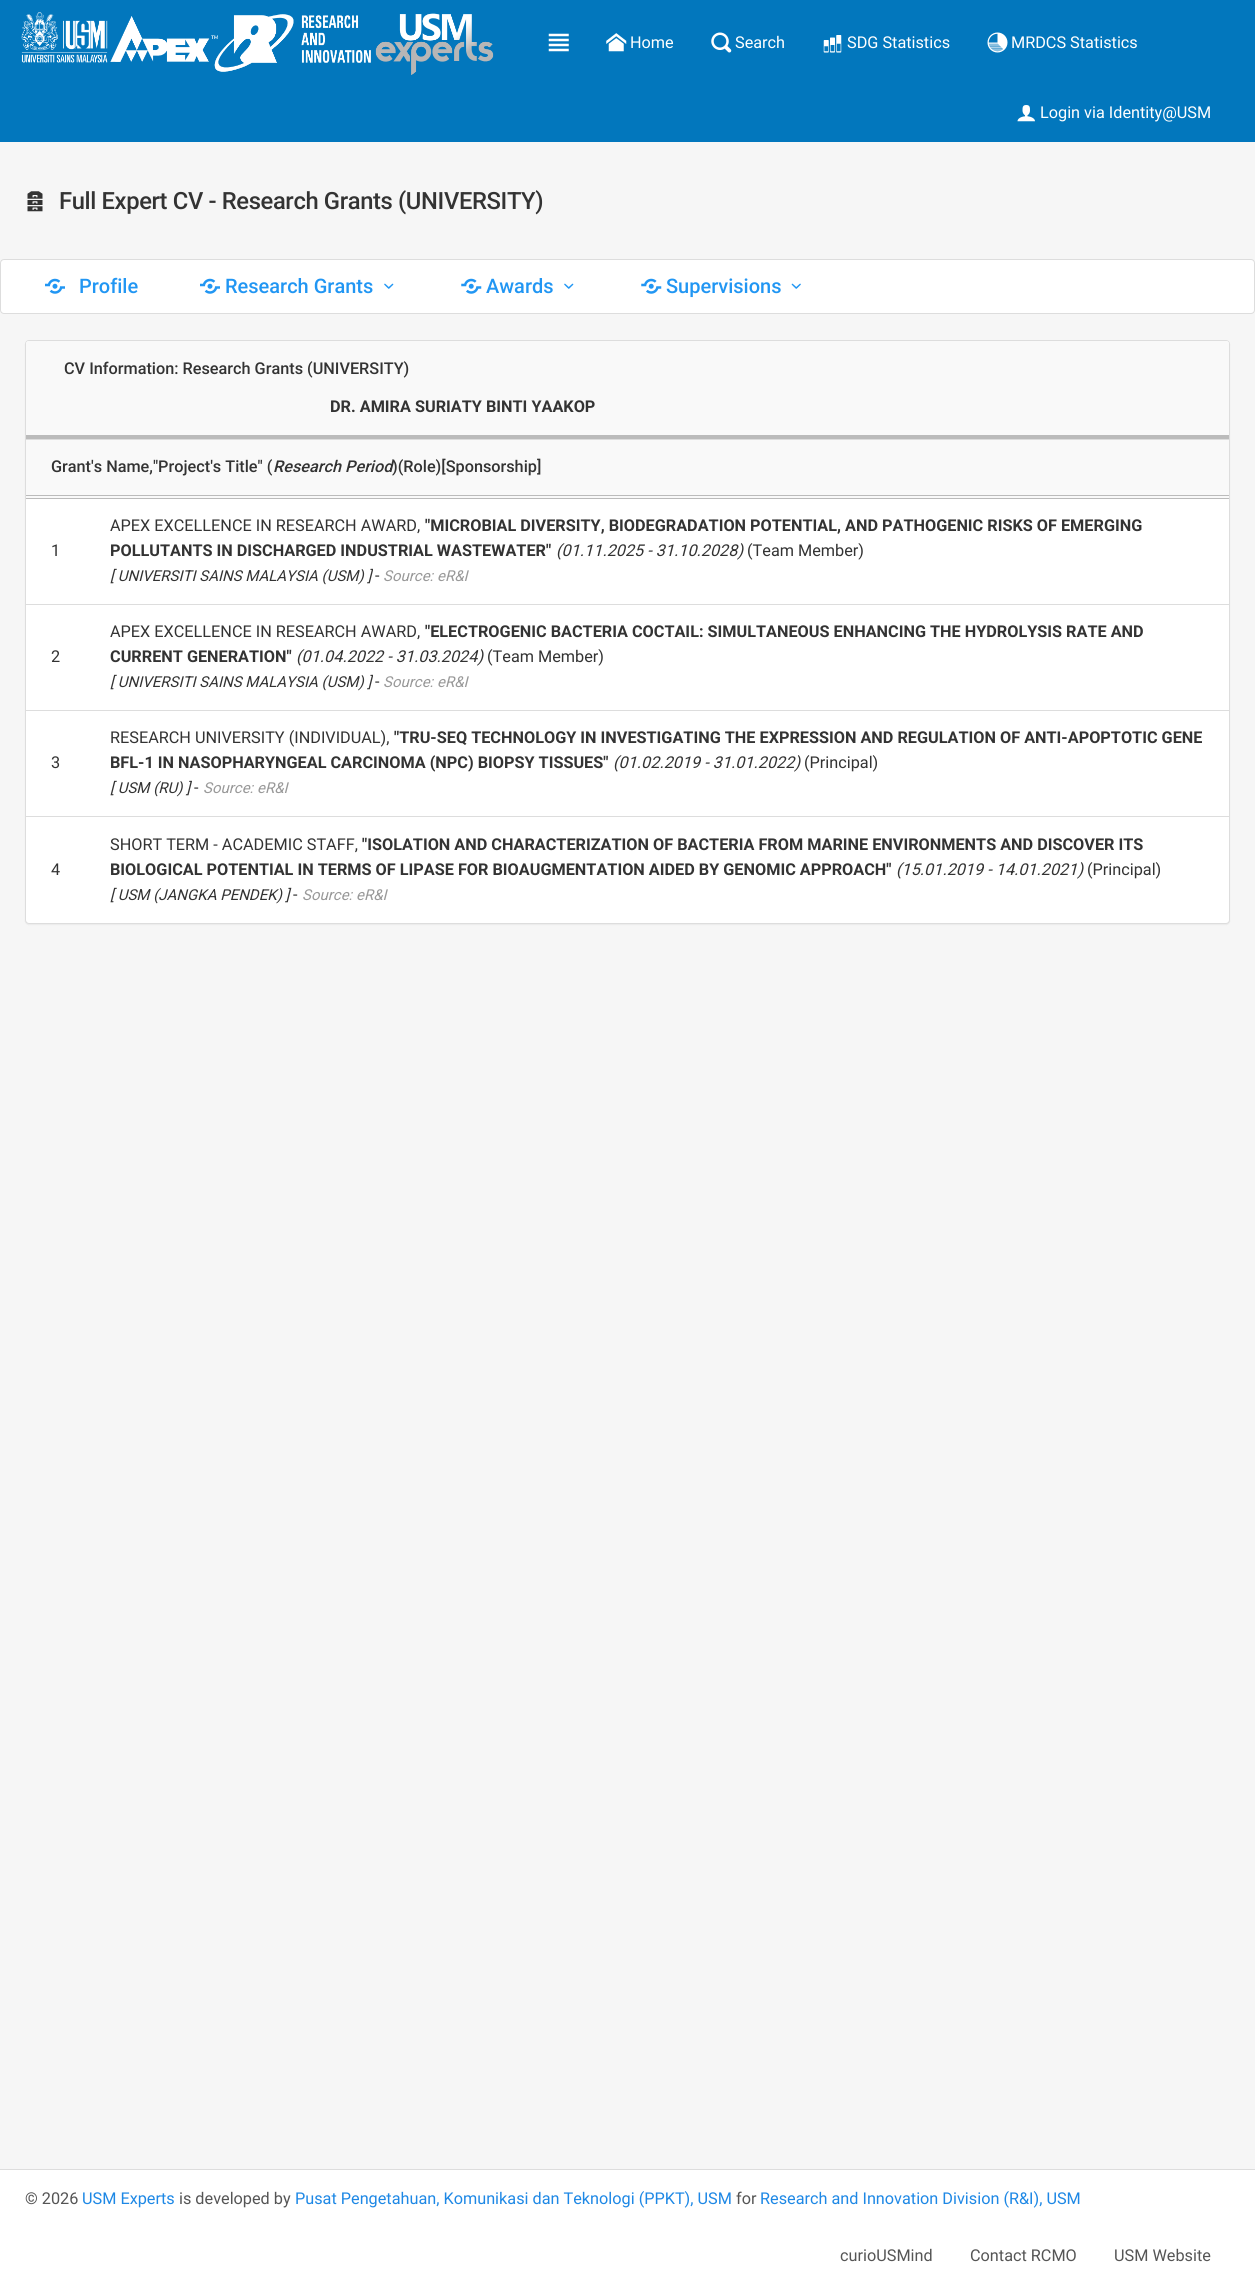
import math
import cairo

surface = cairo.ImageSurface(cairo.FORMAT_RGB24, 1255, 2286)
ctx = cairo.Context(surface)
options = cairo.FontOptions()
options.set_hint_metrics(cairo.HINT_METRICS_OFF)
options.set_hint_style(cairo.HINT_STYLE_NONE)
ctx.set_font_options(options)
ctx.set_miter_limit(4)


def spaced_text(x, y, s, letter, word):
    ctx.move_to(x, y)
    for ch in s:
        ctx.show_text(ch)
        ctx.rel_move_to(letter + word * (ch == ' '), 0)


def round_rect(x, y, w, h, r):
    ctx.new_sub_path()
    for i, (u, v) in enumerate([(x + w - r, y + h - r), (x + r, y + h - r), (x + r, y + r), (x + w - r, y + r)]):
        ctx.arc(u, v, r, i * math.pi / 2, (i + 1) * math.pi / 2)
    ctx.close_path()


def shadow(x, y, w, h, r, blur, alpha):
    ctx.push_group_with_content(cairo.CONTENT_ALPHA)
    ctx.set_operator(cairo.OPERATOR_SOURCE)
    for i in range(15, -16, -2):
        e = blur * i / 6
        if min(w, h) + 2 * e > 0:
            ctx.set_source_rgba(0, 0, 0, alpha * math.erfc((i - 1) / 8.5) / 2)
            round_rect(x - e, y - e, w + 2 * e, h + 2 * e, max(0, min(r + e + blur * .6, min(w, h) / 2 + e)))
            ctx.fill()
    ctx.mask(ctx.pop_group())


def picture(path, x, y, w, h):
    ctx.save()
    ctx.set_source_surface(cairo.ImageSurface.create_from_png(path), x, y)
    ctx.rectangle(x, y, w, h)
    ctx.fill()
    ctx.restore()


ctx.set_source_rgb(0.961, 0.961, 0.961)
ctx.paint()
ctx.set_source_rgb(0.008, 0.467, 0.741)
ctx.rectangle(0, 0, 1255, 142)
ctx.fill()
picture("img1.png", 21, 12, 473, 63)
picture("img2.png", 548, 33, 21, 19)
picture("img3.png", 606, 33, 21, 19)
ctx.select_font_face("Roboto")
ctx.set_font_size(16.25)
ctx.set_source_rgb(1, 1, 1)
ctx.move_to(630, 48)
ctx.show_text("Home")
picture("img4.png", 711, 32, 21, 21)
ctx.move_to(735, 48)
ctx.show_text("Search")
picture("img5.png", 823, 35, 19, 18)
ctx.move_to(847, 48)
ctx.show_text("SDG Statistics")
picture("img6.png", 987, 32, 21, 21)
ctx.move_to(1011, 48)
ctx.show_text("MRDCS Statistics")
picture("img7.png", 1017, 105, 18, 17)
ctx.move_to(1040, 118)
ctx.show_text("Login via Identity@USM")
picture("img8.png", 27, 191, 16, 21)
ctx.select_font_face("Roboto Medium")
ctx.set_font_size(23.75)
ctx.set_source_rgb(0.2, 0.2, 0.2)
spaced_text(59, 209, "Full Expert CV - Research Grants (UNIVERSITY)", -0.35, 0)
ctx.set_source_rgb(1, 1, 1)
round_rect(0.5, 259.5, 1254, 54, 3.5)
ctx.fill_preserve()
ctx.set_source_rgb(0.867, 0.867, 0.867)
ctx.set_line_width(1)
ctx.stroke()
picture("img9.png", 45, 278, 20, 16)
ctx.set_font_size(20)
ctx.set_source_rgb(0.129, 0.588, 0.953)
ctx.move_to(79, 293)
ctx.show_text("Profile")
picture("img9.png", 200, 278, 20, 16)
ctx.move_to(225, 293)
ctx.show_text("Research Grants")
picture("img10.png", 384, 283, 10, 6)
picture("img11.png", 461, 278, 21, 16)
ctx.move_to(486, 293)
ctx.show_text("Awards")
picture("img10.png", 564, 283, 10, 6)
picture("img11.png", 641, 278, 21, 16)
ctx.move_to(666, 293)
ctx.show_text("Supervisions")
picture("img12.png", 791, 283, 10, 6)
ctx.set_source_rgb(0, 0, 0)
shadow(25, 341, 1205, 584, 4, 0.5, 0.05)
ctx.set_source_rgb(1, 1, 1)
round_rect(25.5, 340.5, 1204, 583, 3.5)
ctx.fill_preserve()
ctx.set_source_rgb(0.867, 0.867, 0.867)
ctx.stroke()
ctx.set_source_rgb(0.973, 0.973, 0.973)
ctx.new_path()
ctx.move_to(28.5, 341)
ctx.line_to(1226.5, 341)
ctx.curve_to(1228, 341, 1229, 342, 1229, 343.5)
ctx.line_to(1229, 439)
ctx.line_to(26, 439)
ctx.line_to(26, 343.5)
ctx.curve_to(26, 342, 27, 341, 28.5, 341)
ctx.close_path()
ctx.fill()
ctx.set_source_rgb(0.733, 0.733, 0.733)
ctx.rectangle(26, 435, 1203, 4)
ctx.fill()
ctx.set_font_size(16.25)
ctx.set_source_rgb(0.2, 0.2, 0.2)
ctx.move_to(64, 374)
ctx.show_text("CV Information: Research Grants (UNIVERSITY)")
ctx.select_font_face("Roboto", cairo.FONT_SLANT_NORMAL, cairo.FONT_WEIGHT_BOLD)
ctx.move_to(330, 412)
ctx.show_text("DR. AMIRA SURIATY BINTI YAAKOP")
ctx.set_source_rgb(0.973, 0.973, 0.973)
ctx.rectangle(26, 440, 1203, 58)
ctx.fill()
ctx.set_source_rgb(0.867, 0.867, 0.867)
ctx.rectangle(26, 439, 1203, 1)
ctx.fill()
ctx.set_source_rgb(0.733, 0.733, 0.733)
ctx.rectangle(26, 495, 1203, 1)
ctx.fill()
ctx.rectangle(26, 498, 1203, 1)
ctx.fill()
ctx.select_font_face("Roboto Medium")
ctx.set_source_rgb(0.2, 0.2, 0.2)
ctx.move_to(51, 472)
ctx.show_text("Grant's Name,\"Project's Title\" (")
ctx.select_font_face("Roboto Medium", cairo.FONT_SLANT_ITALIC)
ctx.move_to(273, 472)
ctx.show_text("Research Period")
ctx.select_font_face("Roboto Medium")
ctx.move_to(392, 472)
ctx.show_text(")(Role)[Sponsorship]")
ctx.select_font_face("Roboto")
ctx.move_to(51, 556)
ctx.show_text("1")
ctx.move_to(110, 531)
ctx.show_text("APEX EXCELLENCE IN RESEARCH AWARD,")
ctx.select_font_face("Roboto", cairo.FONT_SLANT_NORMAL, cairo.FONT_WEIGHT_BOLD)
ctx.move_to(425, 531)
ctx.show_text("\"MICROBIAL DIVERSITY, BIODEGRADATION POTENTIAL, AND PATHOGENIC RISKS OF EMERGING")
ctx.move_to(110, 556)
ctx.show_text("POLLUTANTS IN DISCHARGED INDUSTRIAL WASTEWATER\"")
ctx.select_font_face("Roboto", cairo.FONT_SLANT_ITALIC)
ctx.move_to(556, 556)
ctx.show_text("(01.11.2025 - 31.10.2028)")
ctx.select_font_face("Roboto")
ctx.move_to(747, 556)
ctx.show_text("(Team Member)")
ctx.select_font_face("Roboto", cairo.FONT_SLANT_ITALIC)
ctx.set_font_size(15)
ctx.move_to(110, 581)
ctx.show_text("[ UNIVERSITI SAINS MALAYSIA (USM) ]")
ctx.select_font_face("Roboto")
ctx.set_font_size(16.25)
ctx.move_to(375, 581)
ctx.show_text("-")
ctx.select_font_face("Roboto", cairo.FONT_SLANT_ITALIC)
ctx.set_font_size(15)
ctx.set_source_rgb(0.6, 0.6, 0.6)
ctx.move_to(383, 581)
ctx.show_text("Source: eR&I")
ctx.set_source_rgb(0.867, 0.867, 0.867)
ctx.rectangle(26, 604, 1203, 1)
ctx.fill()
ctx.select_font_face("Roboto")
ctx.set_font_size(16.25)
ctx.set_source_rgb(0.2, 0.2, 0.2)
ctx.move_to(51, 662)
ctx.show_text("2")
ctx.move_to(110, 637)
ctx.show_text("APEX EXCELLENCE IN RESEARCH AWARD,")
ctx.select_font_face("Roboto", cairo.FONT_SLANT_NORMAL, cairo.FONT_WEIGHT_BOLD)
ctx.move_to(425, 637)
ctx.show_text("\"ELECTROGENIC BACTERIA COCTAIL: SIMULTANEOUS ENHANCING THE HYDROLYSIS RATE AND")
ctx.move_to(110, 662)
ctx.show_text("CURRENT GENERATION\"")
ctx.select_font_face("Roboto", cairo.FONT_SLANT_ITALIC)
ctx.move_to(296, 662)
ctx.show_text("(01.04.2022 - 31.03.2024)")
ctx.select_font_face("Roboto")
ctx.move_to(487, 662)
ctx.show_text("(Team Member)")
ctx.select_font_face("Roboto", cairo.FONT_SLANT_ITALIC)
ctx.set_font_size(15)
ctx.move_to(110, 687)
ctx.show_text("[ UNIVERSITI SAINS MALAYSIA (USM) ]")
ctx.select_font_face("Roboto")
ctx.set_font_size(16.25)
ctx.move_to(375, 687)
ctx.show_text("-")
ctx.select_font_face("Roboto", cairo.FONT_SLANT_ITALIC)
ctx.set_font_size(15)
ctx.set_source_rgb(0.6, 0.6, 0.6)
ctx.move_to(383, 687)
ctx.show_text("Source: eR&I")
ctx.set_source_rgb(0.867, 0.867, 0.867)
ctx.rectangle(26, 710, 1203, 1)
ctx.fill()
ctx.select_font_face("Roboto")
ctx.set_font_size(16.25)
ctx.set_source_rgb(0.2, 0.2, 0.2)
ctx.move_to(51, 768)
ctx.show_text("3")
ctx.move_to(110, 743)
ctx.show_text("RESEARCH UNIVERSITY (INDIVIDUAL),")
ctx.select_font_face("Roboto", cairo.FONT_SLANT_NORMAL, cairo.FONT_WEIGHT_BOLD)
ctx.move_to(394, 743)
ctx.show_text("\"TRU-SEQ TECHNOLOGY IN INVESTIGATING THE EXPRESSION AND REGULATION OF ANTI-APOPTOTIC GENE")
ctx.move_to(110, 768)
ctx.show_text("BFL-1 IN NASOPHARYNGEAL CARCINOMA (NPC) BIOPSY TISSUES\"")
ctx.select_font_face("Roboto", cairo.FONT_SLANT_ITALIC)
ctx.move_to(613, 768)
ctx.show_text("(01.02.2019 - 31.01.2022)")
ctx.select_font_face("Roboto")
ctx.move_to(804, 768)
ctx.show_text("(Principal)")
ctx.select_font_face("Roboto", cairo.FONT_SLANT_ITALIC)
ctx.set_font_size(15)
ctx.move_to(110, 793)
ctx.show_text("[ USM (RU) ]")
ctx.select_font_face("Roboto")
ctx.set_font_size(16.25)
ctx.move_to(194, 793)
ctx.show_text("-")
ctx.select_font_face("Roboto", cairo.FONT_SLANT_ITALIC)
ctx.set_font_size(15)
ctx.set_source_rgb(0.6, 0.6, 0.6)
ctx.move_to(203, 793)
ctx.show_text("Source: eR&I")
ctx.set_source_rgb(0.867, 0.867, 0.867)
ctx.rectangle(26, 816, 1203, 1)
ctx.fill()
ctx.select_font_face("Roboto")
ctx.set_font_size(16.25)
ctx.set_source_rgb(0.2, 0.2, 0.2)
ctx.move_to(51, 875)
ctx.show_text("4")
ctx.move_to(110, 850)
ctx.show_text("SHORT TERM - ACADEMIC STAFF,")
ctx.select_font_face("Roboto", cairo.FONT_SLANT_NORMAL, cairo.FONT_WEIGHT_BOLD)
ctx.move_to(362, 850)
ctx.show_text("\"ISOLATION AND CHARACTERIZATION OF BACTERIA FROM MARINE ENVIRONMENTS AND DISCOVER ITS")
ctx.move_to(110, 875)
ctx.show_text("BIOLOGICAL POTENTIAL IN TERMS OF LIPASE FOR BIOAUGMENTATION AIDED BY GENOMIC APPROACH\"")
ctx.select_font_face("Roboto", cairo.FONT_SLANT_ITALIC)
ctx.move_to(896, 875)
ctx.show_text("(15.01.2019 - 14.01.2021)")
ctx.select_font_face("Roboto")
ctx.move_to(1087, 875)
ctx.show_text("(Principal)")
ctx.select_font_face("Roboto", cairo.FONT_SLANT_ITALIC)
ctx.set_font_size(15)
ctx.move_to(110, 900)
ctx.show_text("[ USM (JANGKA PENDEK) ]")
ctx.select_font_face("Roboto")
ctx.set_font_size(16.25)
ctx.move_to(293, 900)
ctx.show_text("-")
ctx.select_font_face("Roboto", cairo.FONT_SLANT_ITALIC)
ctx.set_font_size(15)
ctx.set_source_rgb(0.6, 0.6, 0.6)
ctx.move_to(302, 900)
ctx.show_text("Source: eR&I")
ctx.set_source_rgb(1, 1, 1)
ctx.rectangle(0, 2170, 1255, 116)
ctx.fill()
ctx.set_source_rgb(0.867, 0.867, 0.867)
ctx.rectangle(0, 2169, 1255, 1)
ctx.fill()
ctx.select_font_face("Roboto")
ctx.set_font_size(16.25)
ctx.set_source_rgb(0.333, 0.333, 0.333)
ctx.move_to(25, 2204)
ctx.show_text("© 2026")
ctx.set_source_rgb(0.118, 0.533, 0.898)
ctx.move_to(82, 2204)
ctx.show_text("USM Experts")
ctx.set_source_rgb(0.333, 0.333, 0.333)
ctx.move_to(179, 2204)
ctx.show_text("is developed by")
ctx.set_source_rgb(0.118, 0.533, 0.898)
ctx.move_to(295, 2204)
ctx.show_text("Pusat Pengetahuan, Komunikasi dan Teknologi (PPKT), USM")
ctx.set_source_rgb(0.333, 0.333, 0.333)
ctx.move_to(736, 2204)
ctx.show_text("for")
ctx.set_source_rgb(0.118, 0.533, 0.898)
ctx.move_to(760, 2204)
ctx.show_text("Research and Innovation Division (R&I), USM")
ctx.set_source_rgb(0.333, 0.333, 0.333)
ctx.move_to(840, 2261)
ctx.show_text("curioUSMind")
ctx.move_to(970, 2261)
ctx.show_text("Contact RCMO")
ctx.move_to(1114, 2261)
ctx.show_text("USM Website")
surface.write_to_png("page.png")
